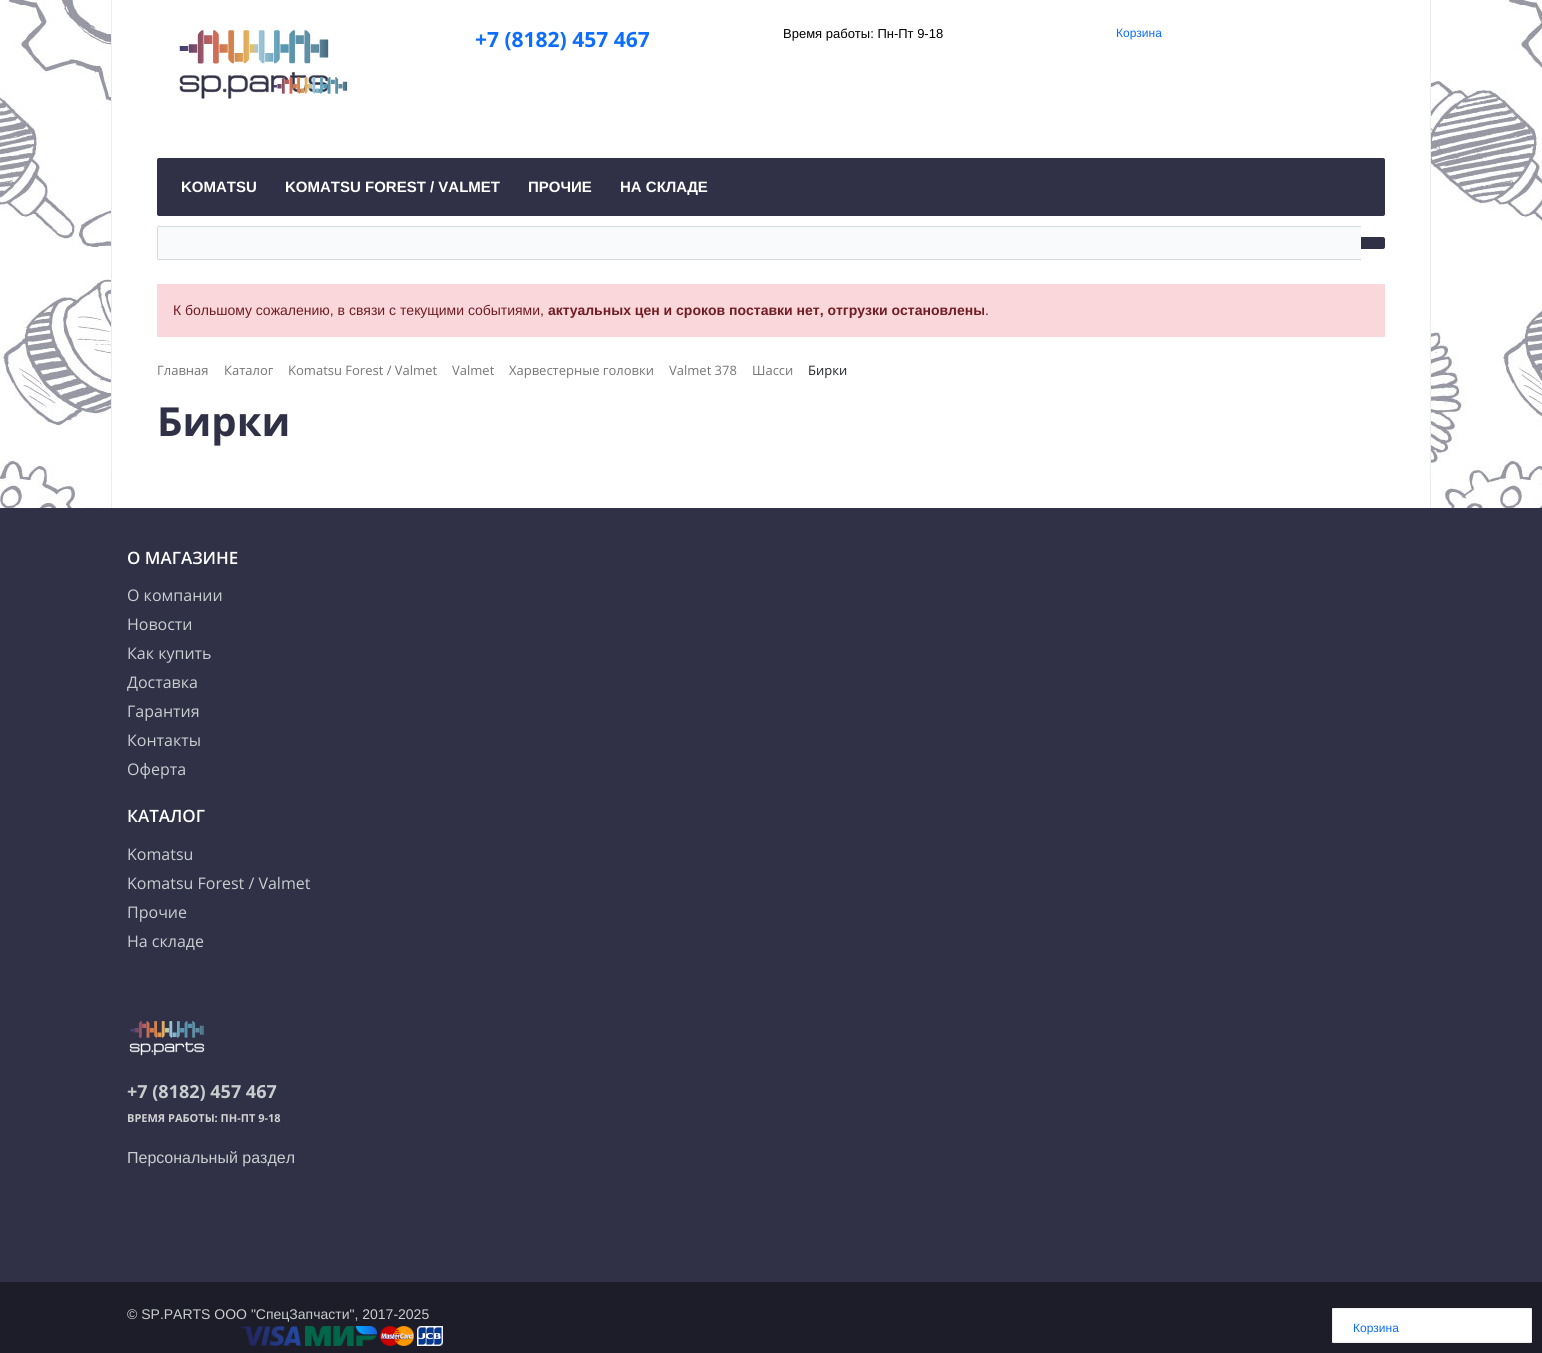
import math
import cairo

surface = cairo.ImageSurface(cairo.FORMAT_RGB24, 1542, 1353)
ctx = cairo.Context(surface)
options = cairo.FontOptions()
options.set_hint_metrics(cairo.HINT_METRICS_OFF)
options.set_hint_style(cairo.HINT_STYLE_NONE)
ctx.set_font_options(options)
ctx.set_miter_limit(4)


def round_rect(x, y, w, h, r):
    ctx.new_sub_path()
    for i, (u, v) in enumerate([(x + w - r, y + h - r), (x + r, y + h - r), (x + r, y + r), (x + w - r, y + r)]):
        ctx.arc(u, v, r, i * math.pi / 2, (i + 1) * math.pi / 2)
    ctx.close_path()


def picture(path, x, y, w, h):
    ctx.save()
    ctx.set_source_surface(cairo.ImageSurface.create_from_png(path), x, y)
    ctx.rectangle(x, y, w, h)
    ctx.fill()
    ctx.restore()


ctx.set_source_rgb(1, 1, 1)
ctx.paint()
picture("img1.png", 0, 0, 1542, 508)
ctx.set_source_rgb(1, 1, 1)
ctx.rectangle(112, 0, 1318, 473)
ctx.fill()
ctx.set_source_rgb(0.918, 0.922, 0.925)
ctx.rectangle(1430, 0, 1, 508)
ctx.fill()
ctx.rectangle(111, 0, 1, 508)
ctx.fill()
picture("img2.png", 179, 30, 150, 69)
picture("img3.png", 272, 77, 76, 17)
ctx.select_font_face("Open Sans", cairo.FONT_SLANT_NORMAL, cairo.FONT_WEIGHT_BOLD)
ctx.set_font_size(21)
ctx.set_source_rgb(0.051, 0.431, 0.992)
ctx.move_to(475, 47)
ctx.show_text("+7 (8182) 457 467")
ctx.select_font_face("Liberation Sans")
ctx.set_font_size(13)
ctx.set_source_rgb(0, 0, 0)
ctx.move_to(783, 38)
ctx.show_text("Время работы: Пн-Пт 9-18")
ctx.set_font_size(12)
ctx.set_source_rgb(0.051, 0.431, 0.992)
ctx.move_to(1116, 37)
ctx.show_text("Корзина")
ctx.set_source_rgb(0.188, 0.192, 0.278)
round_rect(157, 158, 1228, 58, 2)
ctx.fill()
ctx.select_font_face("Liberation Sans", cairo.FONT_SLANT_NORMAL, cairo.FONT_WEIGHT_BOLD)
ctx.set_font_size(15)
ctx.set_source_rgb(1, 1, 1)
ctx.move_to(181, 192)
ctx.show_text("KOMATSU")
ctx.move_to(285, 192)
ctx.show_text("KOMATSU FOREST / VALMET")
ctx.move_to(528, 192)
ctx.show_text("ПРОЧИЕ")
ctx.move_to(620, 192)
ctx.show_text("НА СКЛАДЕ")
ctx.set_source_rgb(0.973, 0.98, 0.988)
ctx.new_path()
ctx.move_to(159, 226)
ctx.line_to(1361, 226)
ctx.line_to(1361, 260)
ctx.line_to(159, 260)
ctx.curve_to(158, 260, 157, 259, 157, 258)
ctx.line_to(157, 228)
ctx.curve_to(157, 227, 158, 226, 159, 226)
ctx.close_path()
ctx.fill()
ctx.set_source_rgb(0.835, 0.855, 0.863)
ctx.rectangle(158, 226, 1203, 1)
ctx.fill()
ctx.rectangle(158, 259, 1203, 1)
ctx.fill()
ctx.rectangle(157, 227, 1, 32)
ctx.fill()
ctx.set_source_rgb(0.188, 0.192, 0.278)
ctx.new_path()
ctx.move_to(1361, 237)
ctx.line_to(1383, 237)
ctx.curve_to(1384, 237, 1385, 238, 1385, 239)
ctx.line_to(1385, 247)
ctx.curve_to(1385, 248, 1384, 249, 1383, 249)
ctx.line_to(1361, 249)
ctx.close_path()
ctx.fill()
ctx.set_source_rgb(0.973, 0.843, 0.855)
round_rect(157, 284, 1228, 53, 1)
ctx.fill()
ctx.select_font_face("Liberation Sans")
ctx.set_font_size(14)
ctx.set_source_rgb(0.447, 0.11, 0.141)
ctx.move_to(173, 315)
ctx.show_text("К большому сожалению, в связи с текущими событиями,")
ctx.select_font_face("Liberation Sans", cairo.FONT_SLANT_NORMAL, cairo.FONT_WEIGHT_BOLD)
ctx.move_to(548, 315)
ctx.show_text("актуальных цен и сроков поставки нет, отгрузки остановлены")
ctx.select_font_face("Liberation Sans")
ctx.move_to(985, 315)
ctx.show_text(".")
ctx.select_font_face("Open Sans")
ctx.set_font_size(13)
ctx.set_source_rgb(0.459, 0.459, 0.459)
ctx.move_to(157, 375)
ctx.show_text("Главная")
ctx.move_to(224, 375)
ctx.show_text("Каталог")
ctx.move_to(288, 375)
ctx.show_text("Komatsu Forest / Valmet")
ctx.move_to(452, 375)
ctx.show_text("Valmet")
ctx.move_to(509, 375)
ctx.show_text("Харвестерные головки")
ctx.move_to(669, 375)
ctx.show_text("Valmet 378")
ctx.move_to(752, 375)
ctx.show_text("Шасси")
ctx.set_source_rgb(0.129, 0.145, 0.161)
ctx.move_to(808, 375)
ctx.show_text("Бирки")
ctx.select_font_face("Open Sans", cairo.FONT_SLANT_NORMAL, cairo.FONT_WEIGHT_BOLD)
ctx.set_font_size(40)
ctx.set_source_rgb(0.188, 0.192, 0.278)
ctx.move_to(157, 436)
ctx.show_text("Бирки")
ctx.set_source_rgb(1, 1, 1)
ctx.rectangle(113, 473, 1317, 35)
ctx.fill()
ctx.set_source_rgb(0.188, 0.192, 0.278)
ctx.rectangle(0, 508, 1542, 774)
ctx.fill()
ctx.select_font_face("Open Sans SemiBold")
ctx.set_font_size(17)
ctx.set_source_rgb(1, 1, 1)
ctx.move_to(127, 564)
ctx.show_text("О МАГАЗИНЕ")
ctx.select_font_face("Open Sans")
ctx.set_font_size(16)
ctx.set_source_rgb(0.784, 0.808, 0.808)
ctx.move_to(127, 601)
ctx.show_text("О компании")
ctx.move_to(127, 630)
ctx.show_text("Новости")
ctx.move_to(127, 659)
ctx.show_text("Как купить")
ctx.move_to(127, 688)
ctx.show_text("Доставка")
ctx.move_to(127, 717)
ctx.show_text("Гарантия")
ctx.move_to(127, 746)
ctx.show_text("Контакты")
ctx.move_to(127, 775)
ctx.show_text("Оферта")
ctx.select_font_face("Open Sans SemiBold")
ctx.set_font_size(17)
ctx.set_source_rgb(1, 1, 1)
ctx.move_to(127, 822)
ctx.show_text("КАТАЛОГ")
ctx.select_font_face("Open Sans")
ctx.set_font_size(16)
ctx.set_source_rgb(0.784, 0.808, 0.808)
ctx.move_to(127, 860)
ctx.show_text("Komatsu")
ctx.move_to(127, 889)
ctx.show_text("Komatsu Forest / Valmet")
ctx.move_to(127, 918)
ctx.show_text("Прочие")
ctx.move_to(127, 947)
ctx.show_text("На складе")
picture("img4.png", 129, 1021, 76, 35)
ctx.select_font_face("Open Sans", cairo.FONT_SLANT_NORMAL, cairo.FONT_WEIGHT_BOLD)
ctx.set_font_size(18)
ctx.move_to(127, 1098)
ctx.show_text("+7 (8182) 457 467")
ctx.set_font_size(11)
ctx.set_source_rgb(0.812, 0.816, 0.816)
ctx.move_to(127, 1122)
ctx.show_text("ВРЕМЯ РАБОТЫ: ПН-ПТ 9-18")
ctx.select_font_face("Liberation Sans")
ctx.set_font_size(16)
ctx.set_source_rgb(0.784, 0.808, 0.808)
ctx.move_to(127, 1163)
ctx.show_text("Персональный раздел")
ctx.set_source_rgb(0.114, 0.114, 0.161)
ctx.rectangle(0, 1282, 1542, 71)
ctx.fill()
ctx.set_font_size(14)
ctx.set_source_rgb(0.784, 0.808, 0.808)
ctx.move_to(127, 1319)
ctx.show_text("© SP.PARTS ООО \"СпецЗапчасти\", 2017-2025")
picture("img5.png", 240, 1326, 61, 20)
picture("img6.png", 305, 1326, 72, 20)
picture("img7.png", 380, 1326, 34, 20)
picture("img8.png", 417, 1326, 26, 20)
ctx.set_source_rgb(1, 1, 1)
round_rect(1332.5, 1308.5, 199, 34, 0.5)
ctx.fill_preserve()
ctx.set_source_rgb(0.941, 0.941, 0.941)
ctx.set_line_width(1)
ctx.stroke()
ctx.set_font_size(12)
ctx.set_source_rgb(0.051, 0.431, 0.992)
ctx.move_to(1353, 1332)
ctx.show_text("Корзина")
surface.write_to_png("page.png")
